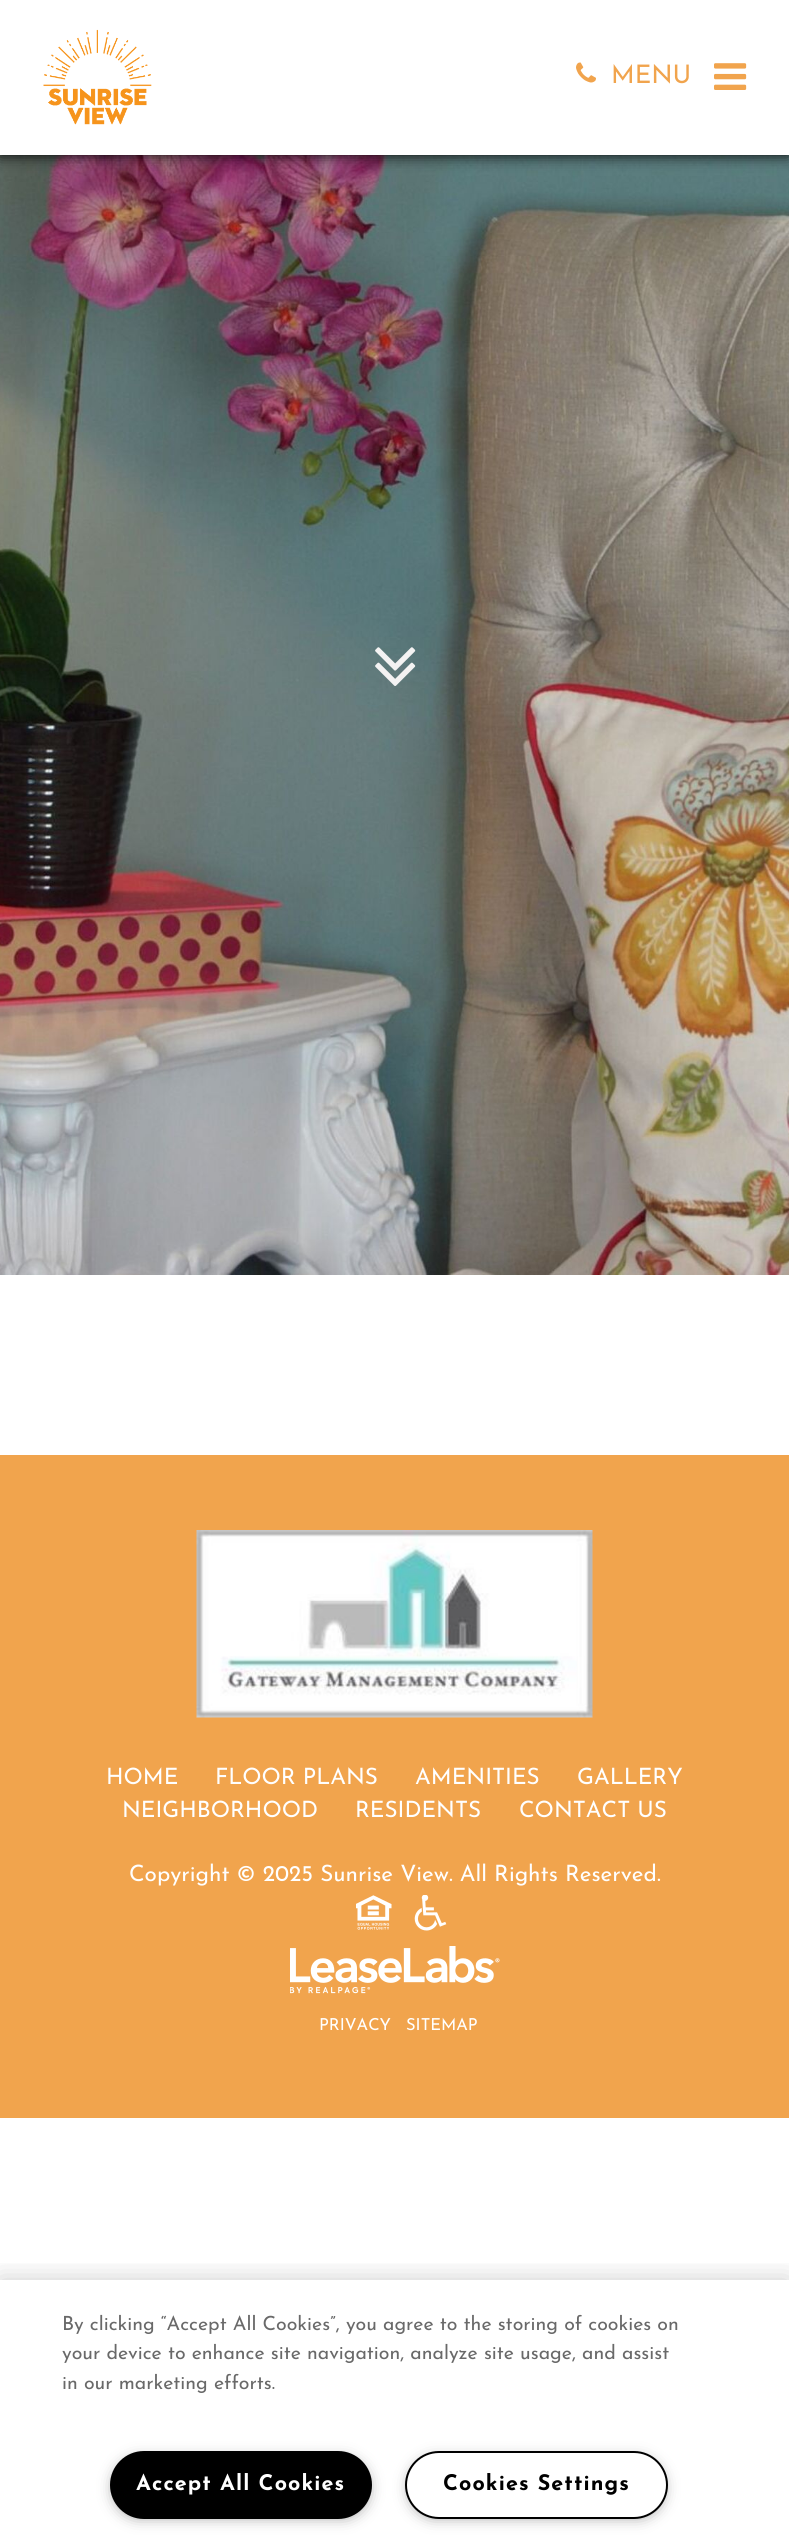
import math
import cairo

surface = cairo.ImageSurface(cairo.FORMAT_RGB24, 789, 2548)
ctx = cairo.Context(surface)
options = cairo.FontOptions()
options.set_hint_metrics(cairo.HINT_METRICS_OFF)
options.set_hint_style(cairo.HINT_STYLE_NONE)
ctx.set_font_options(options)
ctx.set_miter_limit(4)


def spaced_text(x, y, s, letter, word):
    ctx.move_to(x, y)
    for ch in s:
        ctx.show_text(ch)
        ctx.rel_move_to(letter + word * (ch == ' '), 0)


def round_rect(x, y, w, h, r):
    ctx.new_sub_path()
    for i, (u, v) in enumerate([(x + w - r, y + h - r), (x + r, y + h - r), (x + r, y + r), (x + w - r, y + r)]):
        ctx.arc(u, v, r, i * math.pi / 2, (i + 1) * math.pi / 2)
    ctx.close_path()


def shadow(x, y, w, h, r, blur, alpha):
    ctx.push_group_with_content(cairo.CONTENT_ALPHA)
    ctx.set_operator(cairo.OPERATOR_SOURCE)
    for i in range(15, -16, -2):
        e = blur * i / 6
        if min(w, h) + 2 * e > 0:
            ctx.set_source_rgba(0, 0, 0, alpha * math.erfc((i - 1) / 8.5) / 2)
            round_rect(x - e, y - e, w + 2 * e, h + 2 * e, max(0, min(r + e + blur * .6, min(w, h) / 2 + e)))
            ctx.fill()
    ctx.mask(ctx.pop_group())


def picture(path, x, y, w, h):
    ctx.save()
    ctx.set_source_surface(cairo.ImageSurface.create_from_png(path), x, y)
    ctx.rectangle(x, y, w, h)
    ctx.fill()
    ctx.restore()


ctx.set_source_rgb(1, 1, 1)
ctx.paint()
picture("img4.png", 0, 155, 789, 1120)
ctx.set_source_rgb(0, 0, 0)
shadow(0, 0, 789, 155, 0, 7.5, 1)
ctx.set_source_rgb(1, 1, 1)
ctx.rectangle(0, 0, 789, 155)
ctx.fill()
picture("img1.png", 43, 29, 109, 96)
picture("img2.png", 576, 62, 20, 21)
ctx.select_font_face("Josefin Sans")
ctx.set_font_size(25.5)
ctx.set_source_rgb(0.945, 0.643, 0.302)
ctx.move_to(611, 83)
ctx.show_text("MENU")
picture("img3.png", 714, 63, 33, 27)
picture("img5.png", 375, 647, 41, 39)
ctx.rectangle(0, 1455, 789, 663)
ctx.fill()
picture("img6.png", 196, 1530, 397, 188)
ctx.set_font_size(22.5)
ctx.set_source_rgb(1, 1, 1)
ctx.move_to(106, 1784)
ctx.show_text("HOME")
ctx.move_to(215, 1784)
ctx.show_text("FLOOR PLANS")
ctx.move_to(415, 1784)
ctx.show_text("AMENITIES")
ctx.move_to(577, 1784)
ctx.show_text("GALLERY")
ctx.move_to(122, 1817)
ctx.show_text("NEIGHBORHOOD")
ctx.move_to(355, 1817)
ctx.show_text("RESIDENTS")
ctx.move_to(519, 1817)
ctx.show_text("CONTACT US")
ctx.move_to(129, 1881)
ctx.show_text("Copyright © 2025 Sunrise View. All Rights Reserved.")
picture("img7.png", 356, 1895, 36, 35)
picture("img8.png", 414, 1895, 33, 36)
picture("img9.png", 290, 1946, 210, 48)
ctx.set_font_size(16.5)
ctx.move_to(319, 2030)
ctx.show_text("PRIVACY")
ctx.move_to(406, 2030)
ctx.show_text("SITEMAP")
ctx.save()
ctx.rectangle(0, 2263, 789, 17)
ctx.clip()
ctx.set_source_rgb(0, 0, 0)
shadow(0, 2280, 789, 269, 0, 13.5, 0.2)
ctx.restore()
ctx.set_font_size(19.5)
ctx.set_source_rgb(0.412, 0.412, 0.412)
ctx.move_to(62, 2330)
ctx.show_text("By clicking “Accept All Cookies”, you agree to the storing of cookies on")
ctx.move_to(62, 2359)
ctx.show_text("your device to enhance site navigation, analyze site usage, and assist")
ctx.move_to(62, 2389)
ctx.show_text("in our marketing efforts.")
ctx.set_source_rgb(0.6, 0.6, 0.6)
shadow(114, 2459, 254, 58, 29, 7.5, 1)
ctx.set_source_rgb(0, 0, 0)
round_rect(111, 2452, 260, 66, 33)
ctx.fill_preserve()
ctx.stroke()
ctx.select_font_face("Josefin Sans", cairo.FONT_SLANT_NORMAL, cairo.FONT_WEIGHT_BOLD)
ctx.set_font_size(21.5)
ctx.set_source_rgb(1, 1, 1)
spaced_text(136, 2490, "Accept All Cookies", 1.1, 0)
ctx.set_source_rgb(0.6, 0.6, 0.6)
shadow(410, 2459, 253, 58, 29, 7.5, 1)
ctx.set_source_rgb(1, 1, 1)
round_rect(406, 2452, 261, 66, 33)
ctx.fill_preserve()
ctx.set_source_rgb(0, 0, 0)
ctx.stroke()
spaced_text(443, 2490, "Cookies Settings", 1.1, 0)
surface.write_to_png("page.png")
